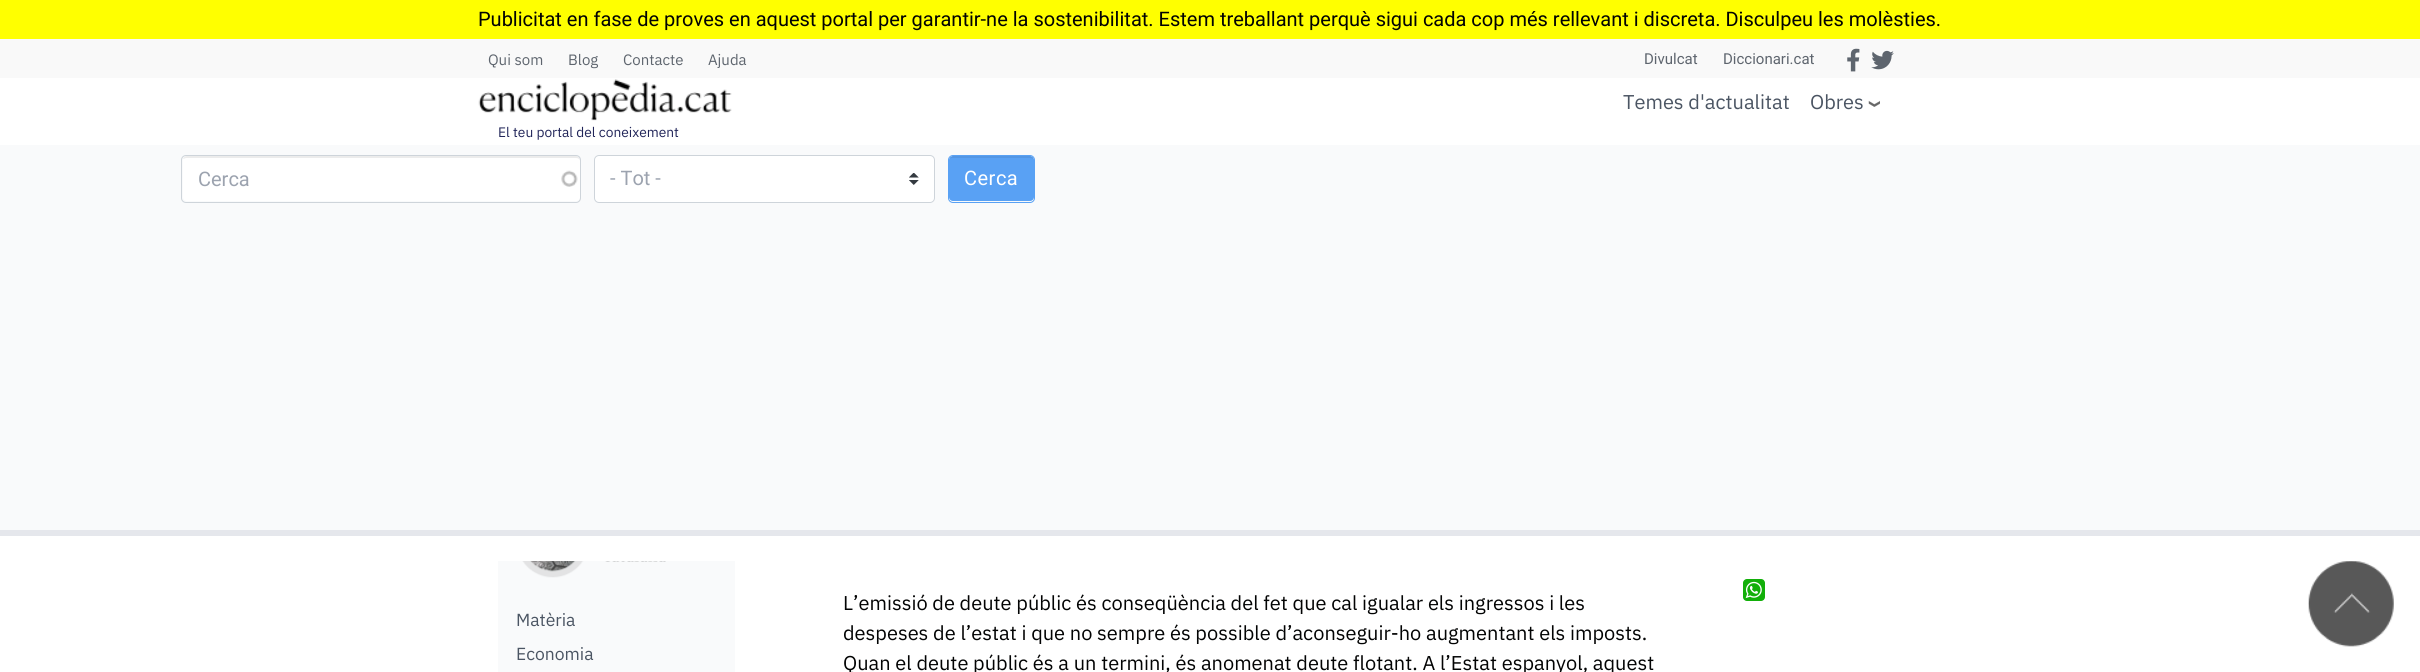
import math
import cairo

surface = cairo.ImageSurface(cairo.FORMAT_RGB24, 2420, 672)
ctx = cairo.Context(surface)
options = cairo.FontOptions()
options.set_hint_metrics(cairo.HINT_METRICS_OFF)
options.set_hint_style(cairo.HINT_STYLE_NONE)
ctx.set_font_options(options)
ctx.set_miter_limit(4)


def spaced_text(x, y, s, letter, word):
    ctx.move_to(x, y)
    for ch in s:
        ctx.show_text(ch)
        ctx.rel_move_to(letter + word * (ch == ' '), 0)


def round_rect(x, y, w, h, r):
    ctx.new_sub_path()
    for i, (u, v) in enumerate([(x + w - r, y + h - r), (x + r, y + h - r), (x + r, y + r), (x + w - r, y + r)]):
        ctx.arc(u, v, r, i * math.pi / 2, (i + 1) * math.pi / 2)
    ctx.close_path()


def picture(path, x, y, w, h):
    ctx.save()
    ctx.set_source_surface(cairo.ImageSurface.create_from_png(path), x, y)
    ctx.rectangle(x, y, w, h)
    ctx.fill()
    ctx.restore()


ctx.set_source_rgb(1, 1, 1)
ctx.paint()
ctx.set_source_rgb(1, 1, 0)
ctx.rectangle(0, 0, 2420, 39)
ctx.fill()
ctx.select_font_face("Roboto")
ctx.set_font_size(20)
ctx.set_source_rgb(0.008, 0.012, 0.012)
ctx.move_to(478, 26)
ctx.show_text("Publicitat en fase de proves en aquest portal per garantir-ne la sostenibilitat. Estem treballant perquè sigui cada cop més rellevant i discreta. Disculpeu les molèsties.")
ctx.set_source_rgb(0.973, 0.973, 0.973)
ctx.rectangle(0, 39, 2420, 39)
ctx.fill()
ctx.select_font_face("IBM Plex Sans")
ctx.set_font_size(15)
ctx.set_source_rgb(0.369, 0.396, 0.431)
ctx.move_to(488, 65)
ctx.show_text("Qui som")
ctx.move_to(568, 65)
ctx.show_text("Blog")
ctx.move_to(623, 65)
ctx.show_text("Contacte")
ctx.move_to(708, 65)
ctx.show_text("Ajuda")
ctx.select_font_face("Roboto")
ctx.move_to(1644, 64)
ctx.show_text("Divulcat")
ctx.move_to(1723, 64)
ctx.show_text("Diccionari.cat")
picture("img1.png", 1847, 48, 13, 24)
picture("img2.png", 1871, 50, 23, 20)
ctx.select_font_face("IBM Plex Sans")
ctx.set_font_size(20)
ctx.set_source_rgb(0.294, 0.333, 0.388)
ctx.move_to(1623, 109)
ctx.show_text("Temes d'actualitat")
ctx.move_to(1810, 109)
ctx.show_text("Obres")
picture("img3.png", 1868, 100, 12, 7)
picture("img4.png", 478, 79, 254, 42)
ctx.set_font_size(13.75)
ctx.set_source_rgb(0.129, 0.145, 0.349)
ctx.move_to(498, 137)
ctx.show_text("El teu portal del coneixement")
ctx.set_source_rgb(0.976, 0.98, 0.984)
ctx.rectangle(0, 145, 2420, 385)
ctx.fill()
ctx.set_source_rgb(0.898, 0.906, 0.922)
ctx.rectangle(0, 530, 2420, 6)
ctx.fill()
ctx.set_source_rgb(1, 1, 1)
round_rect(183, 156, 397, 45, 4)
ctx.fill()
picture("img5.png", 561, 170, 17, 17)
ctx.set_source_rgb(0.925, 0.925, 0.925)
ctx.new_path()
ctx.move_to(186, 158)
ctx.line_to(576, 158)
ctx.curve_to(578, 158, 580, 159, 580, 161)
ctx.line_to(580, 160)
ctx.curve_to(580, 158, 578, 156, 576, 156)
ctx.line_to(187, 156)
ctx.curve_to(185, 156, 184, 157, 183, 159)
ctx.close_path()
ctx.fill()
round_rect(181.5, 155.5, 399, 47, 4.5)
ctx.set_source_rgb(0.808, 0.831, 0.855)
ctx.set_line_width(1)
ctx.stroke()
ctx.select_font_face("Roboto")
ctx.set_font_size(20)
ctx.set_source_rgb(0.612, 0.639, 0.686)
ctx.move_to(198, 186)
ctx.show_text("Cerca")
ctx.set_source_rgb(1, 1, 1)
round_rect(594, 155, 341, 48, 5)
ctx.fill()
picture("img6.png", 909, 173, 10, 12)
round_rect(594.5, 155.5, 340, 47, 4.5)
ctx.set_source_rgb(0.808, 0.831, 0.855)
ctx.stroke()
ctx.set_source_rgb(0.612, 0.639, 0.686)
ctx.move_to(610, 185)
ctx.show_text("- Tot -")
ctx.set_source_rgb(0.349, 0.631, 0.957)
round_rect(949, 156, 85, 45, 4)
ctx.fill()
ctx.set_source_rgba(0, 0, 0, 0.07)
ctx.new_path()
ctx.move_to(952, 158)
ctx.line_to(1030, 158)
ctx.curve_to(1032, 158, 1034, 159, 1034, 161)
ctx.curve_to(1034, 153, 1022, 156, 1017, 156)
ctx.line_to(966, 156)
ctx.curve_to(961, 156, 949, 153, 949, 161)
ctx.curve_to(949, 159, 950, 158, 952, 158)
ctx.close_path()
ctx.fill()
round_rect(948.5, 155.5, 86, 47, 4.5)
ctx.set_source_rgb(0.349, 0.631, 0.957)
ctx.stroke()
ctx.set_source_rgb(1, 1, 1)
spaced_text(964, 185, "Cerca", 0.5, 0)
ctx.set_source_rgb(0.071, 0.686, 0.039)
round_rect(1743, 579, 22, 22, 4)
ctx.fill()
picture("img7.png", 1745, 581, 17, 18)
ctx.set_source_rgb(0.976, 0.98, 0.984)
ctx.rectangle(498, 561, 237, 111)
ctx.fill()
picture("img8.png", 522, 561, 144, 17)
ctx.select_font_face("IBM Plex Sans")
ctx.set_font_size(17.5)
ctx.set_source_rgb(0.294, 0.333, 0.388)
ctx.move_to(516, 626)
ctx.show_text("Matèria")
ctx.move_to(516, 660)
ctx.show_text("Economia")
ctx.set_font_size(20)
ctx.set_source_rgb(0.008, 0.012, 0.012)
ctx.move_to(843, 610)
ctx.show_text("L’emissió de deute públic és conseqüència del fet que cal igualar els ingressos i les")
ctx.move_to(843, 640)
ctx.show_text("despeses de l’estat i que no sempre és possible d’aconseguir-ho augmentant els imposts.")
ctx.move_to(843, 670)
ctx.show_text("Quan el deute públic és a un termini, és anomenat deute flotant. A l’Estat espanyol, aquest")
picture("img9.png", 2308, 561, 86, 86)
surface.write_to_png("page.png")
